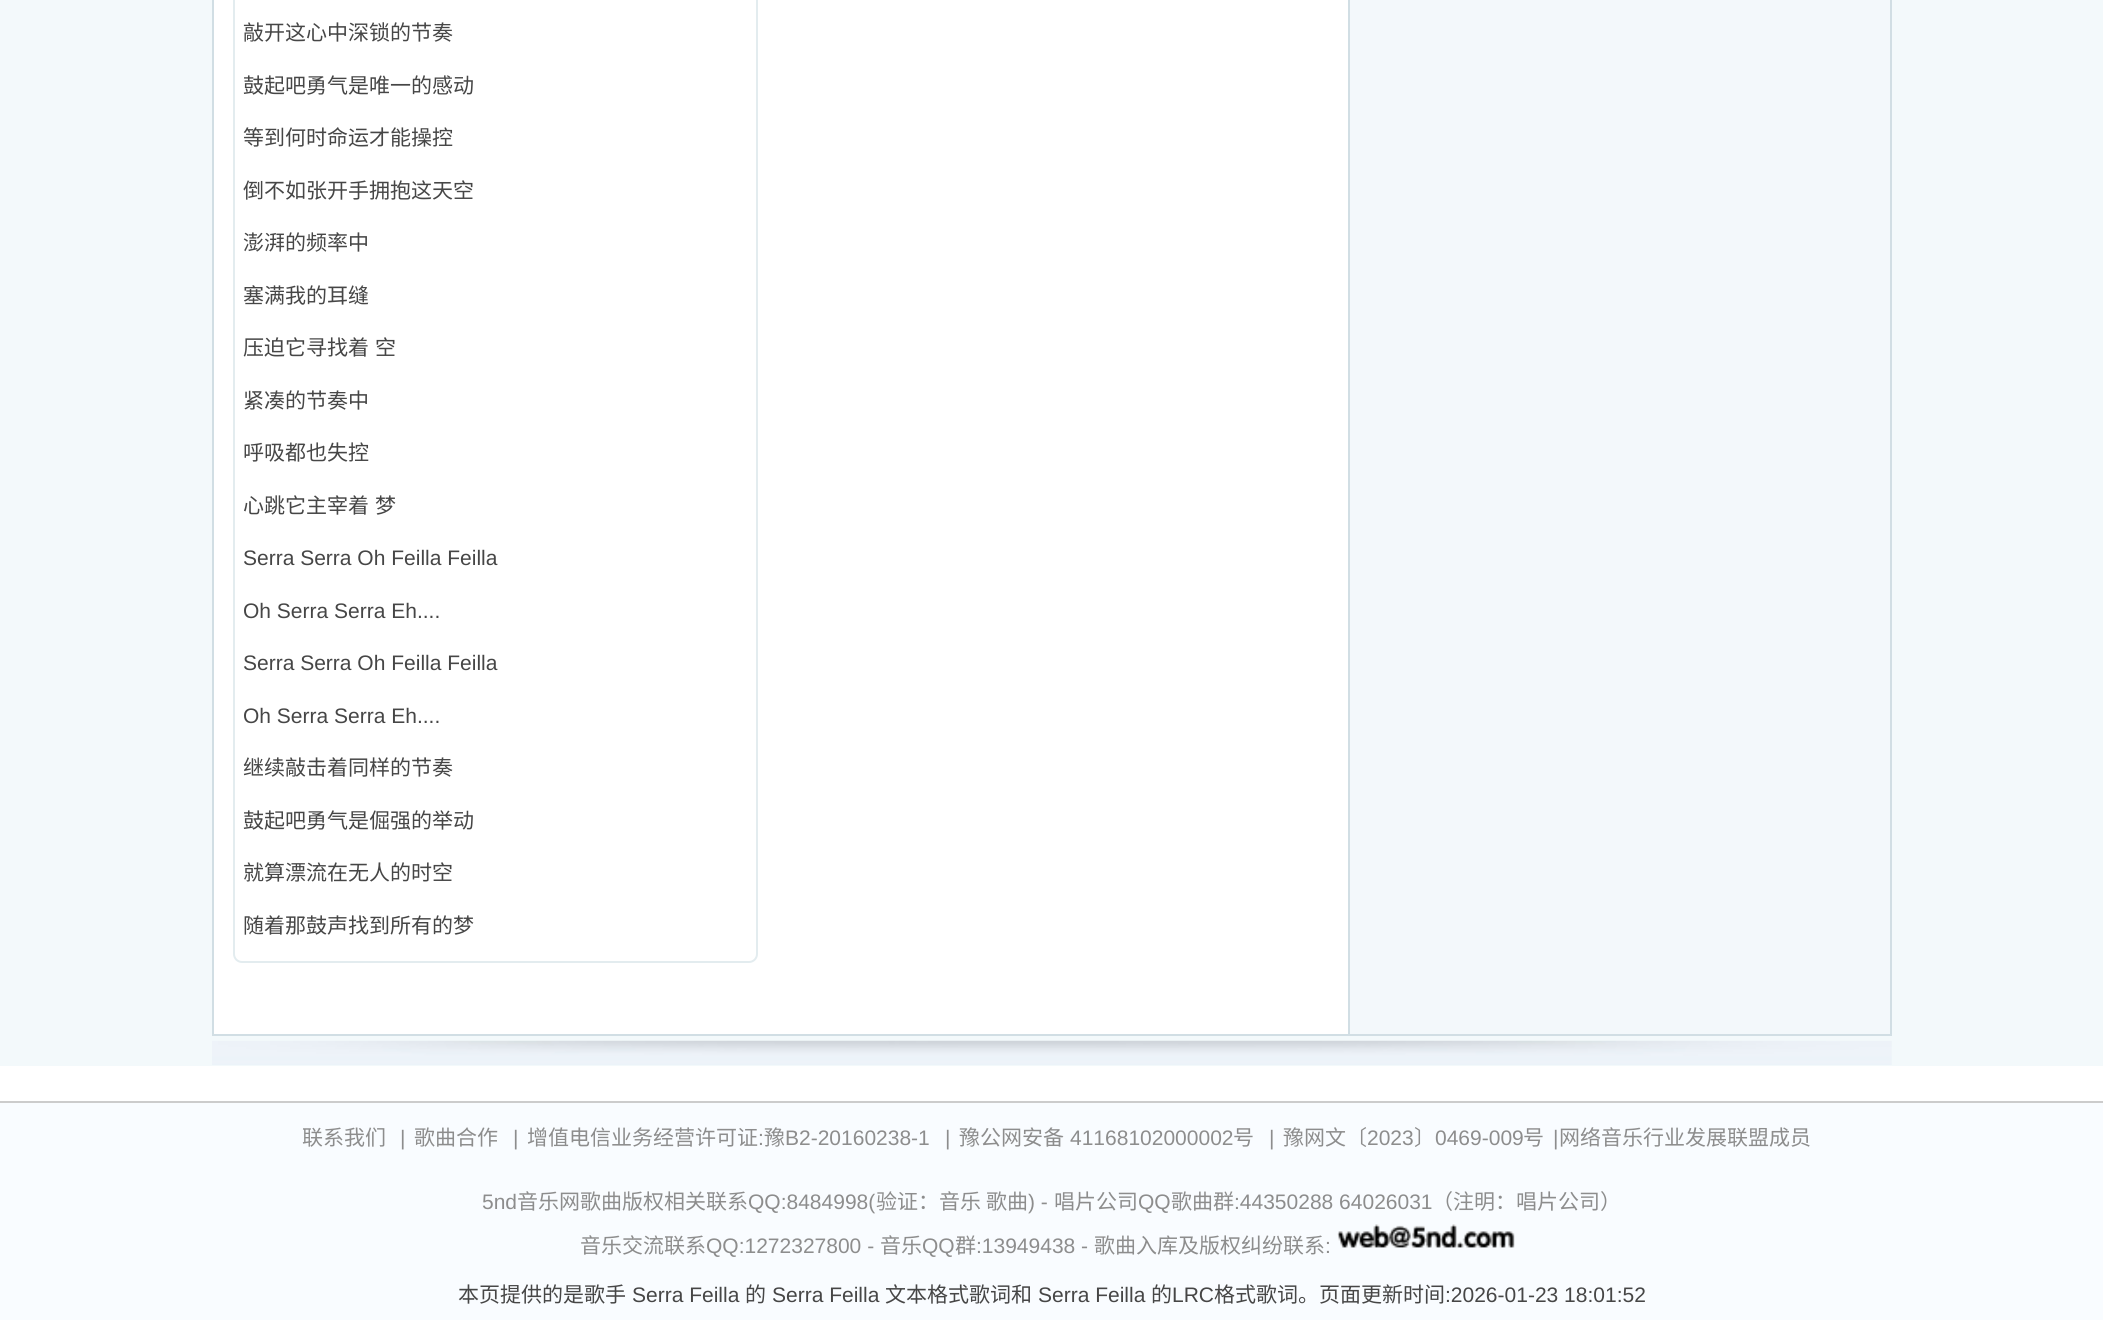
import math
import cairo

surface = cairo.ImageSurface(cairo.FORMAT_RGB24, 2103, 1320)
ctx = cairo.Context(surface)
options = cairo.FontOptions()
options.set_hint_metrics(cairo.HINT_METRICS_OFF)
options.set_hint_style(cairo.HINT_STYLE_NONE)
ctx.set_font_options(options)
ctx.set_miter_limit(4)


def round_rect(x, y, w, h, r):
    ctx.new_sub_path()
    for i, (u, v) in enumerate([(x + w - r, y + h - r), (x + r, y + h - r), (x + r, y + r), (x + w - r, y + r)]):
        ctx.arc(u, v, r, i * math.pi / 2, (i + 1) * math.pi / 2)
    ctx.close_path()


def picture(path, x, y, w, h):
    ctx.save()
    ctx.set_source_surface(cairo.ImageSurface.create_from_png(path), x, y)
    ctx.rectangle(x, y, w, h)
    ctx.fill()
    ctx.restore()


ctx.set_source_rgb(1, 1, 1)
ctx.paint()
ctx.set_source_rgb(0.953, 0.973, 0.984)
ctx.rectangle(0, 0, 2103, 1066)
ctx.fill()
picture("img1.png", 212, 1040, 1680, 25)
picture("img2.png", 1350, 0, 540, 1034)
ctx.rectangle(213, -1, 1678, 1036)
ctx.set_source_rgb(0.82, 0.871, 0.894)
ctx.stroke()
ctx.set_source_rgb(1, 1, 1)
ctx.rectangle(214, 0, 1134, 1034)
ctx.fill()
ctx.set_source_rgb(0.82, 0.871, 0.894)
ctx.rectangle(1348, 0, 2, 1034)
ctx.fill()
round_rect(234, -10, 523, 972, 8)
ctx.set_source_rgb(0.89, 0.922, 0.937)
ctx.stroke()
ctx.select_font_face("Noto Sans CJK SC")
ctx.set_font_size(21)
ctx.set_source_rgb(0.275, 0.275, 0.275)
ctx.move_to(243, 40)
ctx.show_text("敲开这心中深锁的节奏")
ctx.move_to(243, 93)
ctx.show_text("鼓起吧勇气是唯一的感动")
ctx.move_to(243, 145)
ctx.show_text("等到何时命运才能操控")
ctx.move_to(243, 198)
ctx.show_text("倒不如张开手拥抱这天空")
ctx.move_to(243, 250)
ctx.show_text("澎湃的频率中")
ctx.move_to(243, 303)
ctx.show_text("塞满我的耳缝")
ctx.move_to(243, 355)
ctx.show_text("压迫它寻找着")
ctx.move_to(375, 355)
ctx.show_text("空")
ctx.move_to(243, 408)
ctx.show_text("紧凑的节奏中")
ctx.move_to(243, 460)
ctx.show_text("呼吸都也失控")
ctx.move_to(243, 513)
ctx.show_text("心跳它主宰着")
ctx.move_to(375, 513)
ctx.show_text("梦")
ctx.select_font_face("Liberation Sans")
ctx.move_to(243, 565)
ctx.show_text("Serra Serra Oh Feilla Feilla")
ctx.move_to(243, 618)
ctx.show_text("Oh Serra Serra Eh....")
ctx.move_to(243, 670)
ctx.show_text("Serra Serra Oh Feilla Feilla")
ctx.move_to(243, 723)
ctx.show_text("Oh Serra Serra Eh....")
ctx.select_font_face("Noto Sans CJK SC")
ctx.move_to(243, 775)
ctx.show_text("继续敲击着同样的节奏")
ctx.move_to(243, 828)
ctx.show_text("鼓起吧勇气是倔强的举动")
ctx.move_to(243, 880)
ctx.show_text("就算漂流在无人的时空")
ctx.move_to(243, 933)
ctx.show_text("随着那鼓声找到所有的梦")
ctx.set_source_rgb(0.973, 0.988, 1)
ctx.rectangle(0, 1103, 2103, 217)
ctx.fill()
ctx.set_source_rgb(0.8, 0.8, 0.8)
ctx.rectangle(0, 1101, 2103, 2)
ctx.fill()
ctx.set_source_rgb(0.553, 0.553, 0.553)
ctx.move_to(302, 1145)
ctx.show_text("联系我们")
ctx.select_font_face("Liberation Sans")
ctx.move_to(400, 1145)
ctx.show_text("|")
ctx.select_font_face("Noto Sans CJK SC")
ctx.move_to(414, 1145)
ctx.show_text("歌曲合作")
ctx.select_font_face("Liberation Sans")
ctx.move_to(513, 1145)
ctx.show_text("|")
ctx.select_font_face("Noto Sans CJK SC")
ctx.move_to(527, 1145)
ctx.show_text("增值电信业务经营许可证")
ctx.select_font_face("Liberation Sans")
ctx.move_to(758, 1145)
ctx.show_text(":")
ctx.select_font_face("Noto Sans CJK SC")
ctx.move_to(764, 1145)
ctx.show_text("豫")
ctx.select_font_face("Liberation Sans")
ctx.move_to(785, 1145)
ctx.show_text("B2-20160238-1")
ctx.move_to(945, 1145)
ctx.show_text("|")
ctx.select_font_face("Noto Sans CJK SC")
ctx.move_to(959, 1145)
ctx.show_text("豫公网安备")
ctx.select_font_face("Liberation Sans")
ctx.move_to(1070, 1145)
ctx.show_text("41168102000002")
ctx.select_font_face("Noto Sans CJK SC")
ctx.move_to(1233, 1145)
ctx.show_text("号")
ctx.select_font_face("Liberation Sans")
ctx.move_to(1269, 1145)
ctx.show_text("|")
ctx.select_font_face("Noto Sans CJK SC")
ctx.move_to(1283, 1145)
ctx.show_text("豫网文〔")
ctx.select_font_face("Liberation Sans")
ctx.move_to(1367, 1145)
ctx.show_text("2023")
ctx.select_font_face("Noto Sans CJK SC")
ctx.move_to(1414, 1145)
ctx.show_text("〕")
ctx.select_font_face("Liberation Sans")
ctx.move_to(1435, 1145)
ctx.show_text("0469-009")
ctx.select_font_face("Noto Sans CJK SC")
ctx.move_to(1523, 1145)
ctx.show_text("号")
ctx.select_font_face("Liberation Sans")
ctx.move_to(1553, 1145)
ctx.show_text("|")
ctx.select_font_face("Noto Sans CJK SC")
ctx.move_to(1559, 1145)
ctx.show_text("网络音乐行业发展联盟成员")
ctx.select_font_face("Liberation Sans")
ctx.move_to(482, 1209)
ctx.show_text("5nd")
ctx.select_font_face("Noto Sans CJK SC")
ctx.move_to(517, 1209)
ctx.show_text("音乐网歌曲版权相关联系")
ctx.select_font_face("Liberation Sans")
ctx.move_to(748, 1209)
ctx.show_text("QQ:8484998(")
ctx.select_font_face("Noto Sans CJK SC")
ctx.move_to(876, 1209)
ctx.show_text("验证：音乐")
ctx.move_to(986, 1209)
ctx.show_text("歌曲")
ctx.select_font_face("Liberation Sans")
ctx.move_to(1028, 1209)
ctx.show_text(") -")
ctx.select_font_face("Noto Sans CJK SC")
ctx.move_to(1054, 1209)
ctx.show_text("唱片公司")
ctx.select_font_face("Liberation Sans")
ctx.move_to(1138, 1209)
ctx.show_text("QQ")
ctx.select_font_face("Noto Sans CJK SC")
ctx.move_to(1171, 1209)
ctx.show_text("歌曲群")
ctx.select_font_face("Liberation Sans")
ctx.move_to(1234, 1209)
ctx.show_text(":44350288 64026031")
ctx.select_font_face("Noto Sans CJK SC")
ctx.move_to(1432, 1209)
ctx.show_text("（注明：唱片公司）")
ctx.move_to(580, 1253)
ctx.show_text("音乐交流联系")
ctx.select_font_face("Liberation Sans")
ctx.move_to(706, 1253)
ctx.show_text("QQ:1272327800 -")
ctx.select_font_face("Noto Sans CJK SC")
ctx.move_to(880, 1253)
ctx.show_text("音乐")
ctx.select_font_face("Liberation Sans")
ctx.move_to(922, 1253)
ctx.show_text("QQ")
ctx.select_font_face("Noto Sans CJK SC")
ctx.move_to(955, 1253)
ctx.show_text("群")
ctx.select_font_face("Liberation Sans")
ctx.move_to(976, 1253)
ctx.show_text(":13949438 -")
ctx.select_font_face("Noto Sans CJK SC")
ctx.move_to(1094, 1253)
ctx.show_text("歌曲入库及版权纠纷联系")
ctx.select_font_face("Liberation Sans")
ctx.move_to(1325, 1253)
ctx.show_text(":")
picture("img3.png", 1337, 1224, 178, 24)
ctx.select_font_face("Noto Sans CJK SC")
ctx.set_source_rgb(0.275, 0.275, 0.275)
ctx.move_to(458, 1302)
ctx.show_text("本页提供的是歌手")
ctx.select_font_face("Liberation Sans")
ctx.move_to(632, 1302)
ctx.show_text("Serra Feilla")
ctx.select_font_face("Noto Sans CJK SC")
ctx.move_to(745, 1302)
ctx.show_text("的")
ctx.select_font_face("Liberation Sans")
ctx.move_to(772, 1302)
ctx.show_text("Serra Feilla")
ctx.select_font_face("Noto Sans CJK SC")
ctx.move_to(885, 1302)
ctx.show_text("文本格式歌词和")
ctx.select_font_face("Liberation Sans")
ctx.move_to(1038, 1302)
ctx.show_text("Serra Feilla")
ctx.select_font_face("Noto Sans CJK SC")
ctx.move_to(1151, 1302)
ctx.show_text("的")
ctx.select_font_face("Liberation Sans")
ctx.move_to(1172, 1302)
ctx.show_text("LRC")
ctx.select_font_face("Noto Sans CJK SC")
ctx.move_to(1214, 1302)
ctx.show_text("格式歌词。页面更新时间")
ctx.select_font_face("Liberation Sans")
ctx.move_to(1445, 1302)
ctx.show_text(":2026-01-23 18:01:52")
surface.write_to_png("page.png")
